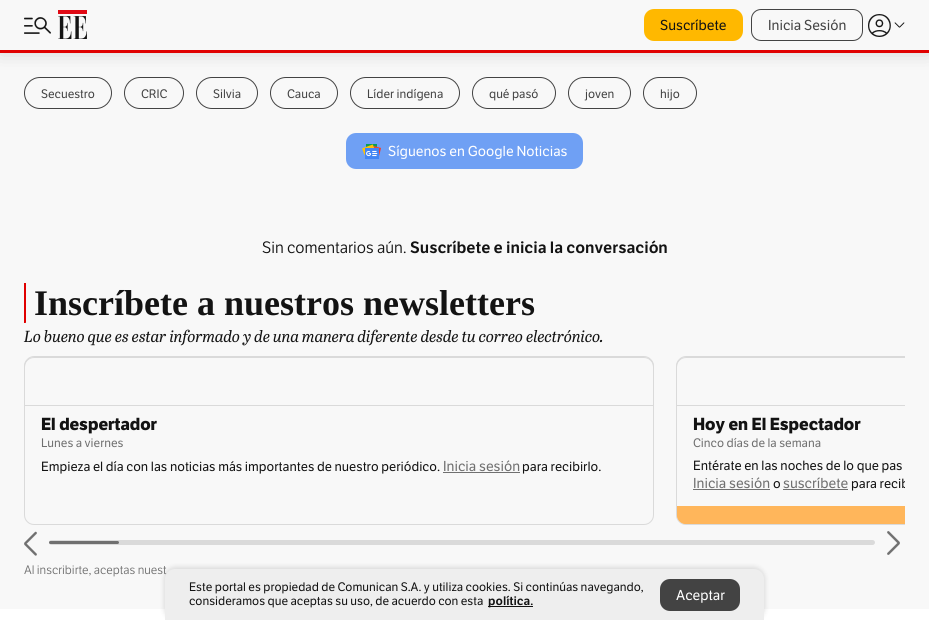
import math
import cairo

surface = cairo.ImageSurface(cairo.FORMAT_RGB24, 929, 620)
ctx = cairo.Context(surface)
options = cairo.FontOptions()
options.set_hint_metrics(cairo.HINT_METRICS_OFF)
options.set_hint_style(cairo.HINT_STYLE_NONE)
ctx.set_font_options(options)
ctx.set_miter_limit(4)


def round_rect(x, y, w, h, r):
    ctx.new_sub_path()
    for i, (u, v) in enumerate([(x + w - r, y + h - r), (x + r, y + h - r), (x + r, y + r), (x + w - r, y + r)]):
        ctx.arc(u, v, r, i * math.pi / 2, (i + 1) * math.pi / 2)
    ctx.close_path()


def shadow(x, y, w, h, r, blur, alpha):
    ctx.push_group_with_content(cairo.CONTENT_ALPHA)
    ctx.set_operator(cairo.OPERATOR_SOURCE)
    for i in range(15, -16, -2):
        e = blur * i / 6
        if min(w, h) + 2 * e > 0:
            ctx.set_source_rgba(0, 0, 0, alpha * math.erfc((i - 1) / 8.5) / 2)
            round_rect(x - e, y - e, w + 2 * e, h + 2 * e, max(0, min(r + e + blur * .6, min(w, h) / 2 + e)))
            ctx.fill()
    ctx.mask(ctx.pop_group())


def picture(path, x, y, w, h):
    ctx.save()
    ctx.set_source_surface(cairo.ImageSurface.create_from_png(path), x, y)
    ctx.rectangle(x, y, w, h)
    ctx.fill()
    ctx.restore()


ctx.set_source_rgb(0.969, 0.969, 0.969)
ctx.paint()
round_rect(24.5, 77.5, 87, 31, 15.5)
ctx.set_source_rgb(0.263, 0.263, 0.263)
ctx.set_line_width(1)
ctx.stroke()
round_rect(124.5, 77.5, 59, 31, 15.5)
ctx.stroke()
round_rect(196.5, 77.5, 61, 31, 15.5)
ctx.stroke()
round_rect(270.5, 77.5, 67, 31, 15.5)
ctx.stroke()
round_rect(350.5, 77.5, 109, 31, 15.5)
ctx.stroke()
round_rect(472.5, 77.5, 83, 31, 15.5)
ctx.stroke()
round_rect(568.5, 77.5, 62, 31, 15.5)
ctx.stroke()
round_rect(643.5, 77.5, 53, 31, 15.5)
ctx.stroke()
ctx.set_source_rgb(0, 0, 0)
shadow(0, 2, 929, 50, 0, 10, 0.16)
ctx.set_source_rgb(0.969, 0.969, 0.969)
ctx.rectangle(0, 0, 929, 50)
ctx.fill()
picture("img1.png", 24, 17, 27, 17)
picture("img2.png", 58, 10, 29, 29)
ctx.set_source_rgb(1, 0.722, 0)
round_rect(644, 9, 99, 32, 10)
ctx.fill()
ctx.select_font_face("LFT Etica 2")
ctx.set_font_size(14)
ctx.set_source_rgb(0.078, 0.078, 0.078)
ctx.move_to(660, 30)
ctx.show_text("Suscríbete")
round_rect(751.5, 9.5, 111, 31, 9.5)
ctx.set_source_rgb(0.263, 0.263, 0.263)
ctx.stroke()
ctx.move_to(768, 30)
ctx.show_text("Inicia Sesión")
picture("img3.png", 868, 14, 23, 23)
picture("img4.png", 894, 22, 11, 6)
ctx.set_source_rgb(0.878, 0, 0)
ctx.rectangle(0, 50, 929, 3)
ctx.fill()
ctx.set_font_size(12)
ctx.set_source_rgb(0.263, 0.263, 0.263)
ctx.move_to(41, 98)
ctx.show_text("Secuestro")
ctx.move_to(141, 98)
ctx.show_text("CRIC")
ctx.move_to(213, 98)
ctx.show_text("Silvia")
ctx.move_to(287, 98)
ctx.show_text("Cauca")
ctx.move_to(367, 98)
ctx.show_text("Líder indígena")
ctx.move_to(489, 98)
ctx.show_text("qué pasó")
ctx.move_to(585, 98)
ctx.show_text("joven")
ctx.move_to(660, 98)
ctx.show_text("hijo")
ctx.set_source_rgb(0.435, 0.627, 0.957)
round_rect(346, 133, 237, 36, 10)
ctx.fill()
picture("img5.png", 362, 144, 19, 15)
ctx.set_font_size(14)
ctx.set_source_rgb(1, 1, 1)
ctx.move_to(388, 156)
ctx.show_text("Síguenos en Google Noticias")
ctx.select_font_face("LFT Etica")
ctx.set_font_size(16)
ctx.set_source_rgb(0.078, 0.078, 0.078)
ctx.move_to(262, 253)
ctx.show_text("Sin comentarios aún.")
ctx.select_font_face("LFT Etica SemiBold")
ctx.move_to(410, 253)
ctx.show_text("Suscríbete e inicia la conversación")
ctx.set_source_rgb(0.878, 0, 0)
ctx.new_path()
ctx.move_to(24, 283)
ctx.line_to(26, 283)
ctx.line_to(26, 288)
ctx.line_to(26, 322)
ctx.curve_to(26, 323, 26, 323, 24, 323)
ctx.line_to(24, 318)
ctx.close_path()
ctx.fill()
ctx.select_font_face("Liberation Serif", cairo.FONT_SLANT_NORMAL, cairo.FONT_WEIGHT_BOLD)
ctx.set_font_size(36)
ctx.set_source_rgb(0.078, 0.078, 0.078)
ctx.move_to(34, 315)
ctx.show_text("Inscríbete a nuestros newsletters")
ctx.select_font_face("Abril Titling", cairo.FONT_SLANT_ITALIC)
ctx.set_font_size(16)
ctx.move_to(24, 342)
ctx.show_text("Lo bueno que es estar informado y de una manera diferente desde tu correo electrónico.")
ctx.new_path()
ctx.move_to(34, 356.5)
ctx.line_to(644, 356.5)
ctx.curve_to(649, 356.5, 653.5, 361, 653.5, 366)
ctx.line_to(653.5, 405.5)
ctx.line_to(24.5, 405.5)
ctx.line_to(24.5, 366)
ctx.curve_to(24.5, 361, 29, 356.5, 34, 356.5)
ctx.close_path()
ctx.set_source_rgb(0.855, 0.855, 0.855)
ctx.stroke()
round_rect(24.5, 357.5, 629, 167, 9.5)
ctx.stroke()
ctx.select_font_face("LFT Etica", cairo.FONT_SLANT_NORMAL, cairo.FONT_WEIGHT_BOLD)
ctx.set_font_size(17)
ctx.set_source_rgb(0.078, 0.078, 0.078)
ctx.move_to(41, 430)
ctx.show_text("El despertador")
ctx.select_font_face("LFT Etica 2")
ctx.set_font_size(12)
ctx.set_source_rgb(0.439, 0.439, 0.439)
ctx.move_to(41, 447)
ctx.show_text("Lunes a viernes")
ctx.set_font_size(13)
ctx.set_source_rgb(0.078, 0.078, 0.078)
ctx.move_to(41, 471)
ctx.show_text("Empieza el día con las noticias más importantes de nuestro periódico.")
ctx.set_font_size(14)
ctx.set_source_rgb(0.439, 0.439, 0.439)
ctx.move_to(443, 471)
ctx.show_text("Inicia sesión")
ctx.rectangle(443, 472, 77, 1)
ctx.fill()
ctx.set_font_size(13)
ctx.set_source_rgb(0.078, 0.078, 0.078)
ctx.move_to(522, 471)
ctx.show_text("para recibirlo.")
ctx.save()
ctx.rectangle(24, 0, 881, 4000)
ctx.clip()
ctx.new_path()
ctx.move_to(686, 356.5)
ctx.line_to(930, 356.5)
ctx.curve_to(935, 356.5, 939.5, 361, 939.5, 366)
ctx.line_to(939.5, 405.5)
ctx.line_to(676.5, 405.5)
ctx.line_to(676.5, 366)
ctx.curve_to(676.5, 361, 681, 356.5, 686, 356.5)
ctx.close_path()
ctx.set_source_rgb(0.855, 0.855, 0.855)
ctx.stroke()
round_rect(676.5, 357.5, 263, 167, 9.5)
ctx.stroke()
ctx.restore()
ctx.select_font_face("LFT Etica", cairo.FONT_SLANT_NORMAL, cairo.FONT_WEIGHT_BOLD)
ctx.set_font_size(17)
ctx.move_to(693, 430)
ctx.show_text("Hoy en El Espectador")
ctx.select_font_face("LFT Etica 2")
ctx.set_font_size(12)
ctx.set_source_rgb(0.439, 0.439, 0.439)
ctx.move_to(693, 447)
ctx.show_text("Cinco días de la semana")
ctx.set_font_size(13)
ctx.set_source_rgb(0.078, 0.078, 0.078)
ctx.move_to(693, 470)
ctx.show_text("Entérate en las noches de lo que pas")
ctx.set_font_size(14)
ctx.set_source_rgb(0.439, 0.439, 0.439)
ctx.move_to(693, 488)
ctx.show_text("Inicia sesión")
ctx.rectangle(693, 489, 77, 1)
ctx.fill()
ctx.set_font_size(13)
ctx.set_source_rgb(0.078, 0.078, 0.078)
ctx.move_to(773, 488)
ctx.show_text("o")
ctx.set_font_size(14)
ctx.set_source_rgb(0.439, 0.439, 0.439)
ctx.move_to(783, 488)
ctx.show_text("suscríbete")
ctx.rectangle(783, 489, 65, 1)
ctx.fill()
ctx.save()
ctx.rectangle(24, 0, 881, 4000)
ctx.clip()
ctx.set_font_size(13)
ctx.set_source_rgb(0.078, 0.078, 0.078)
ctx.move_to(851, 488)
ctx.show_text("para recib")
ctx.restore()
ctx.set_source_rgb(1, 0.714, 0.357)
ctx.new_path()
ctx.move_to(677, 506)
ctx.line_to(905, 506)
ctx.line_to(905, 524)
ctx.line_to(686, 524)
ctx.curve_to(681, 524, 677, 520, 677, 515)
ctx.close_path()
ctx.fill()
ctx.save()
ctx.rectangle(24, 0, 881, 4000)
ctx.clip()
ctx.new_path()
ctx.move_to(677.5, 506.5)
ctx.line_to(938.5, 506.5)
ctx.line_to(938.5, 515)
ctx.curve_to(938.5, 519.5, 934.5, 523.5, 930, 523.5)
ctx.line_to(686, 523.5)
ctx.curve_to(681.5, 523.5, 677.5, 519.5, 677.5, 515)
ctx.close_path()
ctx.stroke()
ctx.restore()
picture("img6.png", 24, 531, 13, 25)
picture("img7.png", 887, 531, 13, 24)
ctx.set_source_rgb(0.855, 0.855, 0.855)
round_rect(49, 540, 826, 5, 2.5)
ctx.fill()
ctx.set_source_rgb(0.439, 0.439, 0.439)
round_rect(49, 541, 70, 3, 1.5)
ctx.fill()
ctx.select_font_face("LFT Etica")
ctx.set_font_size(12)
ctx.move_to(24, 574)
ctx.show_text("Al inscribirte, aceptas nuest")
ctx.set_source_rgb(1, 1, 1)
ctx.rectangle(0, 609, 929, 11)
ctx.fill()
ctx.set_source_rgb(0, 0, 0)
shadow(165, 568, 599, 51, 10, 3, 0.16)
ctx.set_source_rgb(0.933, 0.933, 0.933)
ctx.new_path()
ctx.move_to(175, 569)
ctx.line_to(754, 569)
ctx.curve_to(759.5, 569, 764, 573.5, 764, 579)
ctx.line_to(764, 620)
ctx.line_to(165, 620)
ctx.line_to(165, 579)
ctx.curve_to(165, 573.5, 169.5, 569, 175, 569)
ctx.close_path()
ctx.fill()
ctx.select_font_face("LFT Etica 2")
ctx.set_source_rgb(0.078, 0.078, 0.078)
ctx.move_to(189, 591)
ctx.show_text("Este portal es propiedad de Comunican S.A. y utiliza cookies. Si continúas navegando,")
ctx.move_to(189, 605)
ctx.show_text("consideramos que aceptas su uso, de acuerdo con esta")
ctx.rectangle(488, 606, 45, 1)
ctx.fill()
ctx.select_font_face("LFT Etica SemiBold")
ctx.move_to(488, 605)
ctx.show_text("política.")
ctx.set_source_rgb(0.263, 0.263, 0.263)
round_rect(660, 579, 80, 32, 10)
ctx.fill()
ctx.select_font_face("LFT Etica 2")
ctx.set_font_size(14)
ctx.set_source_rgb(1, 1, 1)
ctx.move_to(676, 600)
ctx.show_text("Aceptar")
surface.write_to_png("page.png")
